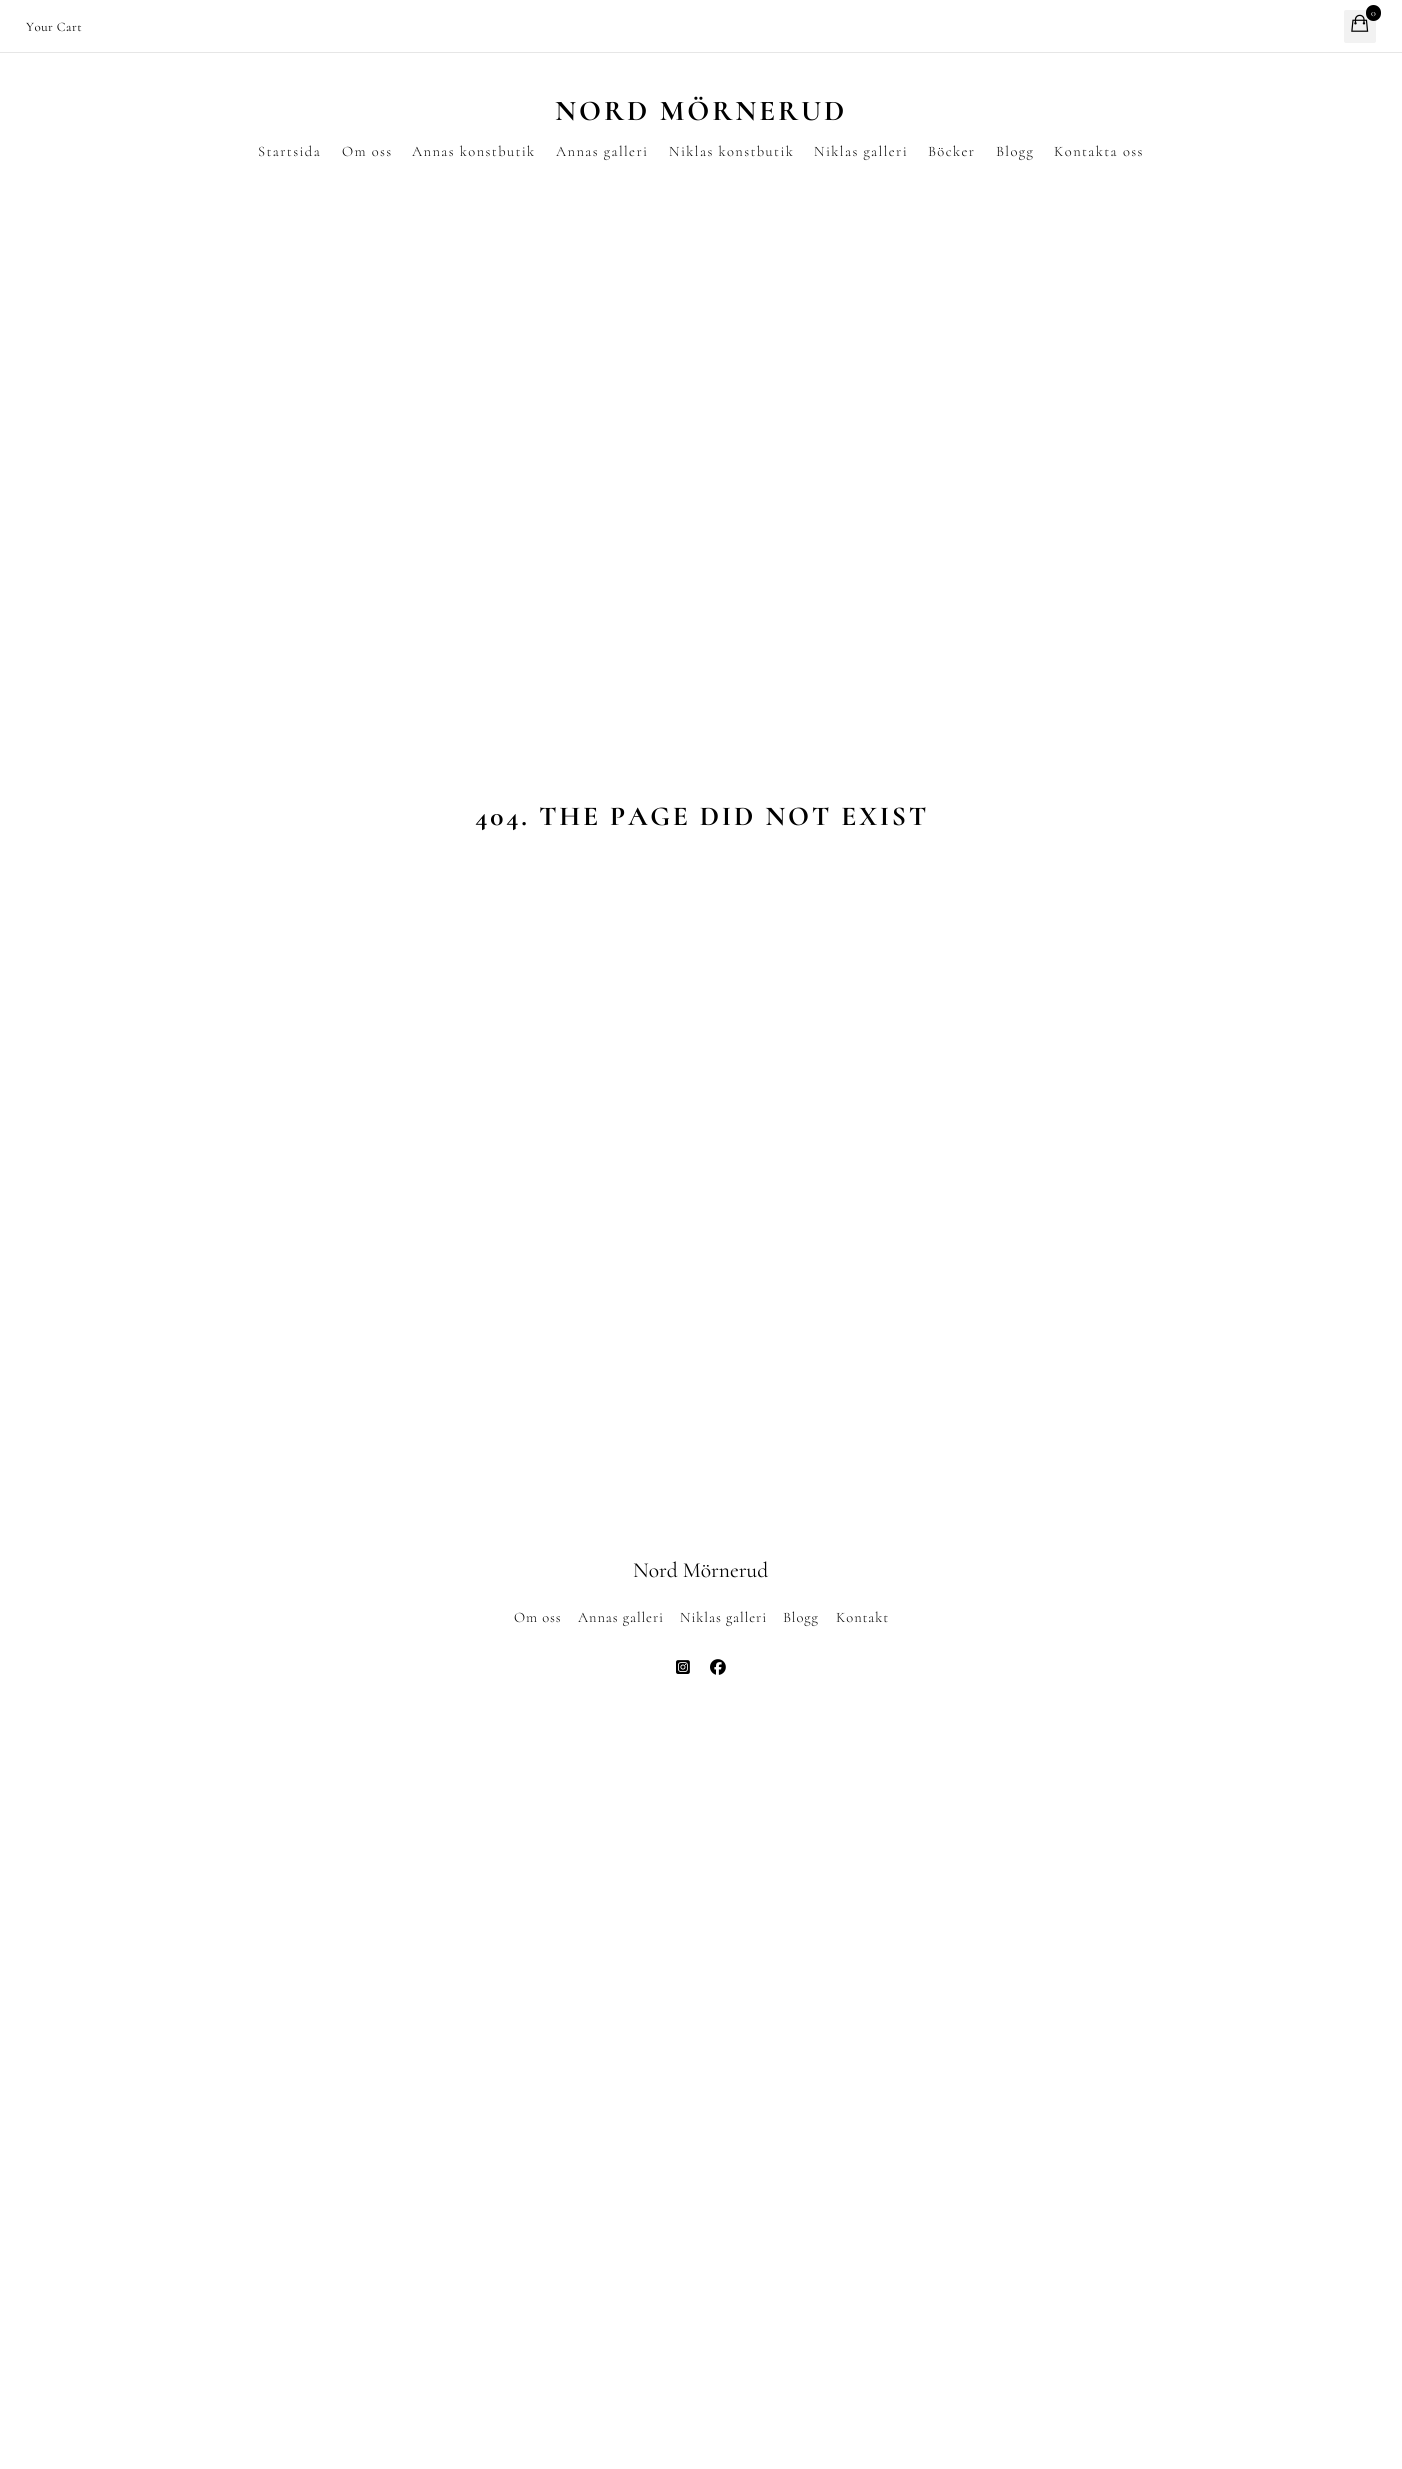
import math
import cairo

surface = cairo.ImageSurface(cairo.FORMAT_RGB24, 1402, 2469)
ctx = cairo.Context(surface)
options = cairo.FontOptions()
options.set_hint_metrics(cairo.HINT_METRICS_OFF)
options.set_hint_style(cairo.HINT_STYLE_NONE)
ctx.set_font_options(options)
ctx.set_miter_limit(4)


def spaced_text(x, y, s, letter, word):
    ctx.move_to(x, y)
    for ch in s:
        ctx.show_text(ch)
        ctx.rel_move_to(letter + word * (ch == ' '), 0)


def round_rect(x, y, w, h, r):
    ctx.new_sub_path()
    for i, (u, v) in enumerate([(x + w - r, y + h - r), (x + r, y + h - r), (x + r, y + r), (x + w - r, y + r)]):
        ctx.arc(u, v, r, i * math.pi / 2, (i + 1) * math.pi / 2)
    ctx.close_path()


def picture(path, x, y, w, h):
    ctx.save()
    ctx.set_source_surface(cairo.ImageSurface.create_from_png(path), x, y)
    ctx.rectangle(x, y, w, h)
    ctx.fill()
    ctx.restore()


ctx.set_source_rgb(1, 1, 1)
ctx.paint()
ctx.set_source_rgb(0.949, 0.949, 0.949)
round_rect(1344, 10, 32, 33, 2)
ctx.fill()
picture("img1.png", 1351, 14, 18, 18)
ctx.set_source_rgb(0, 0, 0)
round_rect(1366, 5, 15, 16, 7.5)
ctx.fill()
ctx.select_font_face("Cormorant")
ctx.set_font_size(10)
ctx.set_source_rgb(1, 1, 1)
spaced_text(1371, 16, "0", 0.5, 0)
ctx.set_font_size(13)
ctx.set_source_rgb(0, 0, 0)
spaced_text(26, 31, "Your Cart", 0.5, 0)
ctx.set_source_rgb(0.902, 0.902, 0.902)
ctx.rectangle(0, 52, 1402, 1)
ctx.fill()
ctx.select_font_face("Cormorant", cairo.FONT_SLANT_NORMAL, cairo.FONT_WEIGHT_BOLD)
ctx.set_font_size(28.75)
ctx.set_source_rgb(0, 0, 0)
spaced_text(555, 120, "NORD MÖRNERUD", 2.9, 0)
ctx.select_font_face("Cormorant Light")
ctx.set_font_size(14.5)
spaced_text(258, 156, "Startsida", 1.4, 0)
spaced_text(342, 156, "Om oss", 1.4, 0)
spaced_text(412, 156, "Annas konstbutik", 1.4, 0)
spaced_text(556, 156, "Annas galleri", 1.4, 0)
spaced_text(669, 156, "Niklas konstbutik", 1.4, 0)
spaced_text(814, 156, "Niklas galleri", 1.4, 0)
spaced_text(928, 156, "Böcker", 1.4, 0)
spaced_text(996, 156, "Blogg", 1.4, 0)
spaced_text(1054, 156, "Kontakta oss", 1.4, 0)
ctx.select_font_face("Cormorant", cairo.FONT_SLANT_NORMAL, cairo.FONT_WEIGHT_BOLD)
ctx.set_font_size(27.4)
spaced_text(475, 825, "404. THE PAGE DID NOT EXIST", 2.75, 0)
ctx.select_font_face("Cormorant")
ctx.set_font_size(21.5)
ctx.move_to(633, 1577)
ctx.show_text("Nord Mörnerud")
ctx.select_font_face("Cormorant Light")
ctx.set_font_size(14.5)
spaced_text(514, 1622, "Om oss", 0.9, 0)
spaced_text(578, 1622, "Annas galleri", 0.9, 0)
spaced_text(680, 1622, "Niklas galleri", 0.9, 0)
spaced_text(783, 1622, "Blogg", 0.9, 0)
spaced_text(836, 1622, "Kontakt", 0.9, 0)
picture("img2.png", 676, 1660, 14, 14)
picture("img3.png", 710, 1659, 16, 16)
surface.write_to_png("page.png")
